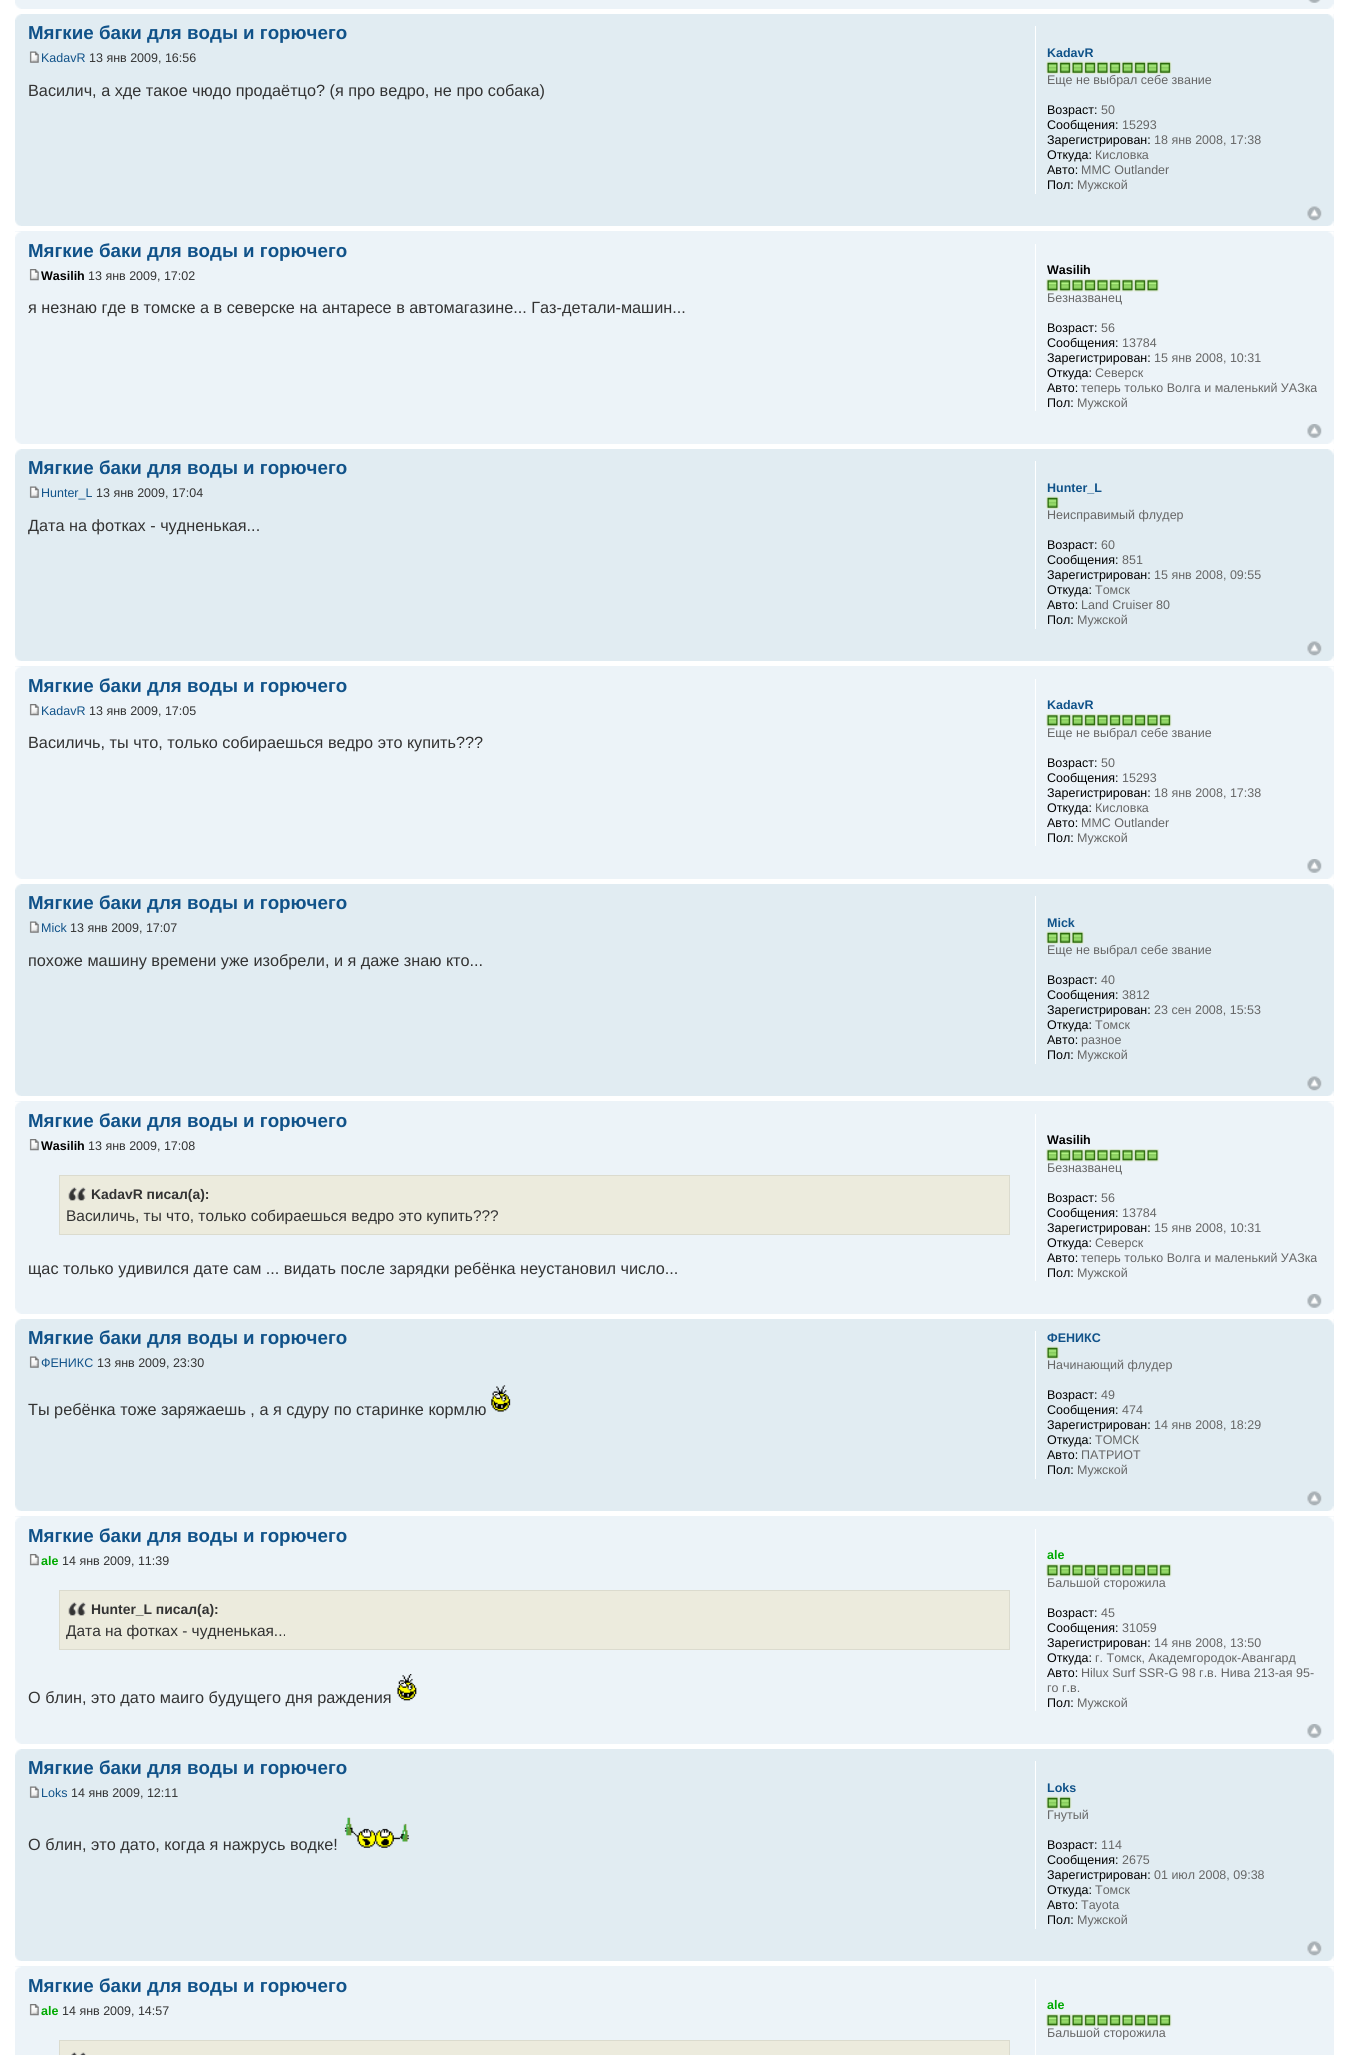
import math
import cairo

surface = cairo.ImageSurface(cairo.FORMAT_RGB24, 1348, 2055)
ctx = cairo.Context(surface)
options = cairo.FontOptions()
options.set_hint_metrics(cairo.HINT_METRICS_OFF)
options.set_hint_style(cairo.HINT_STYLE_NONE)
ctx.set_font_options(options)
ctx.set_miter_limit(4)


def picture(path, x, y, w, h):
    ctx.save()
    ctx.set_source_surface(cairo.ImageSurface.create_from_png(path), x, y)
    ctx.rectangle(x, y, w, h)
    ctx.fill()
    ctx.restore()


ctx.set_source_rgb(1, 1, 1)
ctx.paint()
ctx.set_source_rgb(0.925, 0.953, 0.969)
ctx.rectangle(15, 0, 1319, 9)
ctx.fill()
picture("img1.png", 1308, 0, 13, 3)
picture("img2.png", 15, 3, 6, 6)
picture("img3.png", 1328, 4, 6, 5)
ctx.set_source_rgb(0.882, 0.922, 0.949)
ctx.rectangle(15, 14, 1319, 212)
ctx.fill()
picture("img4.png", 15, 14, 6, 6)
picture("img5.png", 1328, 14, 6, 6)
ctx.select_font_face("Liberation Sans", cairo.FONT_SLANT_NORMAL, cairo.FONT_WEIGHT_BOLD)
ctx.set_font_size(18.75)
ctx.set_source_rgb(0.063, 0.322, 0.537)
ctx.move_to(28, 39)
ctx.show_text("Мягкие баки для воды и горючего")
picture("img6.png", 29, 51, 10, 12)
ctx.select_font_face("Liberation Sans")
ctx.set_font_size(12.5)
ctx.move_to(41, 62)
ctx.show_text("KadavR")
ctx.set_source_rgb(0.2, 0.2, 0.2)
ctx.move_to(89, 62)
ctx.show_text("13 янв 2009, 16:56")
ctx.set_font_size(16.25)
ctx.move_to(28, 96)
ctx.show_text("Василич, а хде такое чюдо продаётцо? (я про ведро, не про собака)")
ctx.set_source_rgb(1, 1, 1)
ctx.rectangle(1035, 26, 1, 168)
ctx.fill()
ctx.select_font_face("Liberation Sans", cairo.FONT_SLANT_NORMAL, cairo.FONT_WEIGHT_BOLD)
ctx.set_font_size(12.5)
ctx.set_source_rgb(0.063, 0.322, 0.537)
ctx.move_to(1047, 57)
ctx.show_text("KadavR")
picture("img7.png", 1046, 61, 13, 13)
picture("img8.png", 1059, 61, 13, 13)
picture("img9.png", 1071, 61, 13, 13)
picture("img8.png", 1084, 61, 13, 13)
picture("img9.png", 1096, 61, 13, 13)
picture("img8.png", 1109, 61, 13, 13)
picture("img9.png", 1121, 61, 13, 13)
picture("img8.png", 1134, 61, 13, 13)
picture("img9.png", 1146, 61, 13, 13)
picture("img8.png", 1159, 61, 13, 13)
ctx.select_font_face("Liberation Sans")
ctx.set_source_rgb(0.4, 0.4, 0.4)
ctx.move_to(1047, 84)
ctx.show_text("Еще не выбрал себе звание")
ctx.set_source_rgb(0, 0, 0)
ctx.move_to(1047, 114)
ctx.show_text("Возраст:")
ctx.set_source_rgb(0.4, 0.4, 0.4)
ctx.move_to(1101, 114)
ctx.show_text("50")
ctx.set_source_rgb(0, 0, 0)
ctx.move_to(1047, 129)
ctx.show_text("Сообщения:")
ctx.set_source_rgb(0.4, 0.4, 0.4)
ctx.move_to(1122, 129)
ctx.show_text("15293")
ctx.set_source_rgb(0, 0, 0)
ctx.move_to(1047, 144)
ctx.show_text("Зарегистрирован:")
ctx.set_source_rgb(0.4, 0.4, 0.4)
ctx.move_to(1154, 144)
ctx.show_text("18 янв 2008, 17:38")
ctx.set_source_rgb(0, 0, 0)
ctx.move_to(1047, 159)
ctx.show_text("Откуда:")
ctx.set_source_rgb(0.4, 0.4, 0.4)
ctx.move_to(1095, 159)
ctx.show_text("Кисловка")
ctx.set_source_rgb(0, 0, 0)
ctx.move_to(1047, 174)
ctx.show_text("Авто:")
ctx.set_source_rgb(0.4, 0.4, 0.4)
ctx.move_to(1081, 174)
ctx.show_text("MMC Outlander")
ctx.set_source_rgb(0, 0, 0)
ctx.move_to(1047, 189)
ctx.show_text("Пол:")
ctx.set_source_rgb(0.4, 0.4, 0.4)
ctx.move_to(1077, 189)
ctx.show_text("Мужской")
picture("img10.png", 1307, 206, 15, 15)
picture("img11.png", 15, 220, 6, 6)
picture("img12.png", 1328, 221, 6, 5)
ctx.set_source_rgb(0.925, 0.953, 0.969)
ctx.rectangle(15, 231, 1319, 213)
ctx.fill()
picture("img13.png", 15, 231, 6, 6)
picture("img14.png", 1328, 231, 6, 6)
ctx.select_font_face("Liberation Sans", cairo.FONT_SLANT_NORMAL, cairo.FONT_WEIGHT_BOLD)
ctx.set_font_size(18.75)
ctx.set_source_rgb(0.063, 0.322, 0.537)
ctx.move_to(28, 257)
ctx.show_text("Мягкие баки для воды и горючего")
picture("img15.png", 29, 269, 10, 12)
ctx.set_font_size(12.5)
ctx.set_source_rgb(0, 0, 0)
ctx.move_to(41, 280)
ctx.show_text("Wasilih")
ctx.select_font_face("Liberation Sans")
ctx.set_source_rgb(0.2, 0.2, 0.2)
ctx.move_to(88, 280)
ctx.show_text("13 янв 2009, 17:02")
ctx.set_font_size(16.25)
ctx.move_to(28, 313)
ctx.show_text("я незнаю где в томске а в северске на антаресе в автомагазине... Газ-детали-машин...")
ctx.set_source_rgb(1, 1, 1)
ctx.rectangle(1035, 244, 1, 167)
ctx.fill()
ctx.select_font_face("Liberation Sans", cairo.FONT_SLANT_NORMAL, cairo.FONT_WEIGHT_BOLD)
ctx.set_font_size(12.5)
ctx.set_source_rgb(0, 0, 0)
ctx.move_to(1047, 274)
ctx.show_text("Wasilih")
picture("img16.png", 1046, 279, 13, 13)
picture("img17.png", 1059, 279, 13, 13)
picture("img18.png", 1071, 279, 13, 13)
picture("img17.png", 1084, 279, 13, 13)
picture("img18.png", 1096, 279, 13, 13)
picture("img17.png", 1109, 279, 13, 13)
picture("img18.png", 1121, 279, 13, 13)
picture("img17.png", 1134, 279, 13, 13)
picture("img18.png", 1146, 279, 13, 13)
ctx.select_font_face("Liberation Sans")
ctx.set_source_rgb(0.4, 0.4, 0.4)
ctx.move_to(1047, 302)
ctx.show_text("Безназванец")
ctx.set_source_rgb(0, 0, 0)
ctx.move_to(1047, 332)
ctx.show_text("Возраст:")
ctx.set_source_rgb(0.4, 0.4, 0.4)
ctx.move_to(1101, 332)
ctx.show_text("56")
ctx.set_source_rgb(0, 0, 0)
ctx.move_to(1047, 347)
ctx.show_text("Сообщения:")
ctx.set_source_rgb(0.4, 0.4, 0.4)
ctx.move_to(1122, 347)
ctx.show_text("13784")
ctx.set_source_rgb(0, 0, 0)
ctx.move_to(1047, 362)
ctx.show_text("Зарегистрирован:")
ctx.set_source_rgb(0.4, 0.4, 0.4)
ctx.move_to(1154, 362)
ctx.show_text("15 янв 2008, 10:31")
ctx.set_source_rgb(0, 0, 0)
ctx.move_to(1047, 377)
ctx.show_text("Откуда:")
ctx.set_source_rgb(0.4, 0.4, 0.4)
ctx.move_to(1095, 377)
ctx.show_text("Северск")
ctx.set_source_rgb(0, 0, 0)
ctx.move_to(1047, 392)
ctx.show_text("Авто:")
ctx.set_source_rgb(0.4, 0.4, 0.4)
ctx.move_to(1081, 392)
ctx.show_text("теперь только Волга и маленький УАЗка")
ctx.set_source_rgb(0, 0, 0)
ctx.move_to(1047, 407)
ctx.show_text("Пол:")
ctx.set_source_rgb(0.4, 0.4, 0.4)
ctx.move_to(1077, 407)
ctx.show_text("Мужской")
picture("img19.png", 1307, 424, 15, 14)
picture("img2.png", 15, 438, 6, 6)
picture("img3.png", 1328, 439, 6, 5)
ctx.set_source_rgb(0.882, 0.922, 0.949)
ctx.rectangle(15, 449, 1319, 212)
ctx.fill()
picture("img4.png", 15, 449, 6, 6)
picture("img5.png", 1328, 449, 6, 6)
ctx.select_font_face("Liberation Sans", cairo.FONT_SLANT_NORMAL, cairo.FONT_WEIGHT_BOLD)
ctx.set_font_size(18.75)
ctx.set_source_rgb(0.063, 0.322, 0.537)
ctx.move_to(28, 474)
ctx.show_text("Мягкие баки для воды и горючего")
picture("img6.png", 29, 486, 10, 12)
ctx.select_font_face("Liberation Sans")
ctx.set_font_size(12.5)
ctx.move_to(41, 497)
ctx.show_text("Hunter_L")
ctx.set_source_rgb(0.2, 0.2, 0.2)
ctx.move_to(96, 497)
ctx.show_text("13 янв 2009, 17:04")
ctx.save()
ctx.rectangle(28, 515, 983, 49)
ctx.clip()
ctx.set_font_size(16.25)
ctx.move_to(28, 531)
ctx.show_text("Дата на фотках - чудненькая...")
ctx.restore()
ctx.set_source_rgb(1, 1, 1)
ctx.rectangle(1035, 461, 1, 168)
ctx.fill()
ctx.select_font_face("Liberation Sans", cairo.FONT_SLANT_NORMAL, cairo.FONT_WEIGHT_BOLD)
ctx.set_source_rgb(0.063, 0.322, 0.537)
ctx.move_to(1047, 492)
ctx.show_text("Hunter_L")
picture("img7.png", 1046, 496, 13, 13)
ctx.select_font_face("Liberation Sans")
ctx.set_source_rgb(0.4, 0.4, 0.4)
ctx.move_to(1047, 519)
ctx.show_text("Неисправимый флудер")
ctx.set_source_rgb(0, 0, 0)
ctx.move_to(1047, 549)
ctx.show_text("Возраст:")
ctx.set_source_rgb(0.4, 0.4, 0.4)
ctx.move_to(1101, 549)
ctx.show_text("60")
ctx.set_source_rgb(0, 0, 0)
ctx.move_to(1047, 564)
ctx.show_text("Сообщения:")
ctx.set_source_rgb(0.4, 0.4, 0.4)
ctx.move_to(1122, 564)
ctx.show_text("851")
ctx.set_source_rgb(0, 0, 0)
ctx.move_to(1047, 579)
ctx.show_text("Зарегистрирован:")
ctx.set_source_rgb(0.4, 0.4, 0.4)
ctx.move_to(1154, 579)
ctx.show_text("15 янв 2008, 09:55")
ctx.set_source_rgb(0, 0, 0)
ctx.move_to(1047, 594)
ctx.show_text("Откуда:")
ctx.set_source_rgb(0.4, 0.4, 0.4)
ctx.move_to(1095, 594)
ctx.show_text("Томск")
ctx.set_source_rgb(0, 0, 0)
ctx.move_to(1047, 609)
ctx.show_text("Авто:")
ctx.set_source_rgb(0.4, 0.4, 0.4)
ctx.move_to(1081, 609)
ctx.show_text("Land Cruiser 80")
ctx.set_source_rgb(0, 0, 0)
ctx.move_to(1047, 624)
ctx.show_text("Пол:")
ctx.set_source_rgb(0.4, 0.4, 0.4)
ctx.move_to(1077, 624)
ctx.show_text("Мужской")
picture("img10.png", 1307, 641, 15, 15)
picture("img11.png", 15, 655, 6, 6)
picture("img12.png", 1328, 656, 6, 5)
ctx.set_source_rgb(0.925, 0.953, 0.969)
ctx.rectangle(15, 666, 1319, 213)
ctx.fill()
picture("img13.png", 15, 666, 6, 6)
picture("img14.png", 1328, 666, 6, 6)
ctx.select_font_face("Liberation Sans", cairo.FONT_SLANT_NORMAL, cairo.FONT_WEIGHT_BOLD)
ctx.set_font_size(18.75)
ctx.set_source_rgb(0.063, 0.322, 0.537)
ctx.move_to(28, 692)
ctx.show_text("Мягкие баки для воды и горючего")
picture("img15.png", 29, 704, 10, 12)
ctx.select_font_face("Liberation Sans")
ctx.set_font_size(12.5)
ctx.move_to(41, 715)
ctx.show_text("KadavR")
ctx.set_source_rgb(0.2, 0.2, 0.2)
ctx.move_to(89, 715)
ctx.show_text("13 янв 2009, 17:05")
ctx.set_font_size(16.25)
ctx.move_to(28, 748)
ctx.show_text("Василичь, ты что, только собираешься ведро это купить???")
ctx.set_source_rgb(1, 1, 1)
ctx.rectangle(1035, 679, 1, 167)
ctx.fill()
ctx.select_font_face("Liberation Sans", cairo.FONT_SLANT_NORMAL, cairo.FONT_WEIGHT_BOLD)
ctx.set_font_size(12.5)
ctx.set_source_rgb(0.063, 0.322, 0.537)
ctx.move_to(1047, 709)
ctx.show_text("KadavR")
picture("img16.png", 1046, 714, 13, 13)
picture("img17.png", 1059, 714, 13, 13)
picture("img18.png", 1071, 714, 13, 13)
picture("img17.png", 1084, 714, 13, 13)
picture("img18.png", 1096, 714, 13, 13)
picture("img17.png", 1109, 714, 13, 13)
picture("img18.png", 1121, 714, 13, 13)
picture("img17.png", 1134, 714, 13, 13)
picture("img18.png", 1146, 714, 13, 13)
picture("img17.png", 1159, 714, 13, 13)
ctx.select_font_face("Liberation Sans")
ctx.set_source_rgb(0.4, 0.4, 0.4)
ctx.move_to(1047, 737)
ctx.show_text("Еще не выбрал себе звание")
ctx.set_source_rgb(0, 0, 0)
ctx.move_to(1047, 767)
ctx.show_text("Возраст:")
ctx.set_source_rgb(0.4, 0.4, 0.4)
ctx.move_to(1101, 767)
ctx.show_text("50")
ctx.set_source_rgb(0, 0, 0)
ctx.move_to(1047, 782)
ctx.show_text("Сообщения:")
ctx.set_source_rgb(0.4, 0.4, 0.4)
ctx.move_to(1122, 782)
ctx.show_text("15293")
ctx.set_source_rgb(0, 0, 0)
ctx.move_to(1047, 797)
ctx.show_text("Зарегистрирован:")
ctx.set_source_rgb(0.4, 0.4, 0.4)
ctx.move_to(1154, 797)
ctx.show_text("18 янв 2008, 17:38")
ctx.set_source_rgb(0, 0, 0)
ctx.move_to(1047, 812)
ctx.show_text("Откуда:")
ctx.set_source_rgb(0.4, 0.4, 0.4)
ctx.move_to(1095, 812)
ctx.show_text("Кисловка")
ctx.set_source_rgb(0, 0, 0)
ctx.move_to(1047, 827)
ctx.show_text("Авто:")
ctx.set_source_rgb(0.4, 0.4, 0.4)
ctx.move_to(1081, 827)
ctx.show_text("MMC Outlander")
ctx.set_source_rgb(0, 0, 0)
ctx.move_to(1047, 842)
ctx.show_text("Пол:")
ctx.set_source_rgb(0.4, 0.4, 0.4)
ctx.move_to(1077, 842)
ctx.show_text("Мужской")
picture("img19.png", 1307, 859, 15, 14)
picture("img2.png", 15, 873, 6, 6)
picture("img3.png", 1328, 874, 6, 5)
ctx.set_source_rgb(0.882, 0.922, 0.949)
ctx.rectangle(15, 884, 1319, 212)
ctx.fill()
picture("img4.png", 15, 884, 6, 6)
picture("img5.png", 1328, 884, 6, 6)
ctx.select_font_face("Liberation Sans", cairo.FONT_SLANT_NORMAL, cairo.FONT_WEIGHT_BOLD)
ctx.set_font_size(18.75)
ctx.set_source_rgb(0.063, 0.322, 0.537)
ctx.move_to(28, 909)
ctx.show_text("Мягкие баки для воды и горючего")
picture("img6.png", 29, 921, 10, 12)
ctx.select_font_face("Liberation Sans")
ctx.set_font_size(12.5)
ctx.move_to(41, 932)
ctx.show_text("Mick")
ctx.set_source_rgb(0.2, 0.2, 0.2)
ctx.move_to(70, 932)
ctx.show_text("13 янв 2009, 17:07")
ctx.set_font_size(16.25)
ctx.move_to(28, 966)
ctx.show_text("похоже машину времени уже изобрели, и я даже знаю кто...")
ctx.set_source_rgb(1, 1, 1)
ctx.rectangle(1035, 896, 1, 168)
ctx.fill()
ctx.select_font_face("Liberation Sans", cairo.FONT_SLANT_NORMAL, cairo.FONT_WEIGHT_BOLD)
ctx.set_font_size(12.5)
ctx.set_source_rgb(0.063, 0.322, 0.537)
ctx.move_to(1047, 927)
ctx.show_text("Mick")
picture("img7.png", 1046, 931, 13, 13)
picture("img8.png", 1059, 931, 13, 13)
picture("img9.png", 1071, 931, 13, 13)
ctx.select_font_face("Liberation Sans")
ctx.set_source_rgb(0.4, 0.4, 0.4)
ctx.move_to(1047, 954)
ctx.show_text("Еще не выбрал себе звание")
ctx.set_source_rgb(0, 0, 0)
ctx.move_to(1047, 984)
ctx.show_text("Возраст:")
ctx.set_source_rgb(0.4, 0.4, 0.4)
ctx.move_to(1101, 984)
ctx.show_text("40")
ctx.set_source_rgb(0, 0, 0)
ctx.move_to(1047, 999)
ctx.show_text("Сообщения:")
ctx.set_source_rgb(0.4, 0.4, 0.4)
ctx.move_to(1122, 999)
ctx.show_text("3812")
ctx.set_source_rgb(0, 0, 0)
ctx.move_to(1047, 1014)
ctx.show_text("Зарегистрирован:")
ctx.set_source_rgb(0.4, 0.4, 0.4)
ctx.move_to(1154, 1014)
ctx.show_text("23 сен 2008, 15:53")
ctx.set_source_rgb(0, 0, 0)
ctx.move_to(1047, 1029)
ctx.show_text("Откуда:")
ctx.set_source_rgb(0.4, 0.4, 0.4)
ctx.move_to(1095, 1029)
ctx.show_text("Томск")
ctx.set_source_rgb(0, 0, 0)
ctx.move_to(1047, 1044)
ctx.show_text("Авто:")
ctx.set_source_rgb(0.4, 0.4, 0.4)
ctx.move_to(1081, 1044)
ctx.show_text("разное")
ctx.set_source_rgb(0, 0, 0)
ctx.move_to(1047, 1059)
ctx.show_text("Пол:")
ctx.set_source_rgb(0.4, 0.4, 0.4)
ctx.move_to(1077, 1059)
ctx.show_text("Мужской")
picture("img10.png", 1307, 1076, 15, 15)
picture("img11.png", 15, 1090, 6, 6)
picture("img12.png", 1328, 1091, 6, 5)
ctx.set_source_rgb(0.925, 0.953, 0.969)
ctx.rectangle(15, 1101, 1319, 213)
ctx.fill()
picture("img13.png", 15, 1101, 6, 6)
picture("img14.png", 1328, 1101, 6, 6)
ctx.select_font_face("Liberation Sans", cairo.FONT_SLANT_NORMAL, cairo.FONT_WEIGHT_BOLD)
ctx.set_font_size(18.75)
ctx.set_source_rgb(0.063, 0.322, 0.537)
ctx.move_to(28, 1127)
ctx.show_text("Мягкие баки для воды и горючего")
picture("img15.png", 29, 1139, 10, 12)
ctx.set_font_size(12.5)
ctx.set_source_rgb(0, 0, 0)
ctx.move_to(41, 1150)
ctx.show_text("Wasilih")
ctx.select_font_face("Liberation Sans")
ctx.set_source_rgb(0.2, 0.2, 0.2)
ctx.move_to(88, 1150)
ctx.show_text("13 янв 2009, 17:08")
ctx.set_source_rgb(0.922, 0.918, 0.867)
ctx.rectangle(60, 1176, 949, 58)
ctx.fill()
picture("img20.png", 68, 1187, 18, 14)
ctx.rectangle(59.5, 1175.5, 950, 59)
ctx.set_source_rgb(0.859, 0.859, 0.808)
ctx.set_line_width(1)
ctx.stroke()
ctx.select_font_face("Liberation Sans", cairo.FONT_SLANT_NORMAL, cairo.FONT_WEIGHT_BOLD)
ctx.set_font_size(13.9)
ctx.set_source_rgb(0.2, 0.2, 0.2)
ctx.move_to(91, 1199)
ctx.show_text("KadavR писал(а):")
ctx.select_font_face("Liberation Sans")
ctx.set_font_size(15.45)
ctx.move_to(66, 1221)
ctx.show_text("Василичь, ты что, только собираешься ведро это купить???")
ctx.set_font_size(16.25)
ctx.move_to(28, 1274)
ctx.show_text("щас только удивился дате сам ... видать после зарядки ребёнка неустановил число...")
ctx.set_source_rgb(1, 1, 1)
ctx.rectangle(1035, 1114, 1, 167)
ctx.fill()
ctx.select_font_face("Liberation Sans", cairo.FONT_SLANT_NORMAL, cairo.FONT_WEIGHT_BOLD)
ctx.set_font_size(12.5)
ctx.set_source_rgb(0, 0, 0)
ctx.move_to(1047, 1144)
ctx.show_text("Wasilih")
picture("img16.png", 1046, 1149, 13, 13)
picture("img17.png", 1059, 1149, 13, 13)
picture("img18.png", 1071, 1149, 13, 13)
picture("img17.png", 1084, 1149, 13, 13)
picture("img18.png", 1096, 1149, 13, 13)
picture("img17.png", 1109, 1149, 13, 13)
picture("img18.png", 1121, 1149, 13, 13)
picture("img17.png", 1134, 1149, 13, 13)
picture("img18.png", 1146, 1149, 13, 13)
ctx.select_font_face("Liberation Sans")
ctx.set_source_rgb(0.4, 0.4, 0.4)
ctx.move_to(1047, 1172)
ctx.show_text("Безназванец")
ctx.set_source_rgb(0, 0, 0)
ctx.move_to(1047, 1202)
ctx.show_text("Возраст:")
ctx.set_source_rgb(0.4, 0.4, 0.4)
ctx.move_to(1101, 1202)
ctx.show_text("56")
ctx.set_source_rgb(0, 0, 0)
ctx.move_to(1047, 1217)
ctx.show_text("Сообщения:")
ctx.set_source_rgb(0.4, 0.4, 0.4)
ctx.move_to(1122, 1217)
ctx.show_text("13784")
ctx.set_source_rgb(0, 0, 0)
ctx.move_to(1047, 1232)
ctx.show_text("Зарегистрирован:")
ctx.set_source_rgb(0.4, 0.4, 0.4)
ctx.move_to(1154, 1232)
ctx.show_text("15 янв 2008, 10:31")
ctx.set_source_rgb(0, 0, 0)
ctx.move_to(1047, 1247)
ctx.show_text("Откуда:")
ctx.set_source_rgb(0.4, 0.4, 0.4)
ctx.move_to(1095, 1247)
ctx.show_text("Северск")
ctx.set_source_rgb(0, 0, 0)
ctx.move_to(1047, 1262)
ctx.show_text("Авто:")
ctx.set_source_rgb(0.4, 0.4, 0.4)
ctx.move_to(1081, 1262)
ctx.show_text("теперь только Волга и маленький УАЗка")
ctx.set_source_rgb(0, 0, 0)
ctx.move_to(1047, 1277)
ctx.show_text("Пол:")
ctx.set_source_rgb(0.4, 0.4, 0.4)
ctx.move_to(1077, 1277)
ctx.show_text("Мужской")
picture("img19.png", 1307, 1294, 15, 14)
picture("img2.png", 15, 1308, 6, 6)
picture("img3.png", 1328, 1309, 6, 5)
ctx.set_source_rgb(0.882, 0.922, 0.949)
ctx.rectangle(15, 1319, 1319, 192)
ctx.fill()
picture("img4.png", 15, 1319, 6, 6)
picture("img5.png", 1328, 1319, 6, 6)
ctx.select_font_face("Liberation Sans", cairo.FONT_SLANT_NORMAL, cairo.FONT_WEIGHT_BOLD)
ctx.set_font_size(18.75)
ctx.set_source_rgb(0.063, 0.322, 0.537)
ctx.move_to(28, 1344)
ctx.show_text("Мягкие баки для воды и горючего")
picture("img6.png", 29, 1356, 10, 12)
ctx.select_font_face("Liberation Sans")
ctx.set_font_size(12.5)
ctx.move_to(41, 1367)
ctx.show_text("ФЕНИКС")
ctx.set_source_rgb(0.2, 0.2, 0.2)
ctx.move_to(97, 1367)
ctx.show_text("13 янв 2009, 23:30")
ctx.set_font_size(16.25)
ctx.move_to(28, 1415)
ctx.show_text("Ты ребёнка тоже заряжаешь , а я сдуру по старинке кормлю")
picture("img21.png", 491, 1385, 20, 27)
ctx.set_source_rgb(1, 1, 1)
ctx.rectangle(1035, 1331, 1, 148)
ctx.fill()
ctx.select_font_face("Liberation Sans", cairo.FONT_SLANT_NORMAL, cairo.FONT_WEIGHT_BOLD)
ctx.set_font_size(12.5)
ctx.set_source_rgb(0.063, 0.322, 0.537)
ctx.move_to(1047, 1342)
ctx.show_text("ФЕНИКС")
picture("img7.png", 1046, 1346, 13, 13)
ctx.select_font_face("Liberation Sans")
ctx.set_source_rgb(0.4, 0.4, 0.4)
ctx.move_to(1047, 1369)
ctx.show_text("Начинающий флудер")
ctx.set_source_rgb(0, 0, 0)
ctx.move_to(1047, 1399)
ctx.show_text("Возраст:")
ctx.set_source_rgb(0.4, 0.4, 0.4)
ctx.move_to(1101, 1399)
ctx.show_text("49")
ctx.set_source_rgb(0, 0, 0)
ctx.move_to(1047, 1414)
ctx.show_text("Сообщения:")
ctx.set_source_rgb(0.4, 0.4, 0.4)
ctx.move_to(1122, 1414)
ctx.show_text("474")
ctx.set_source_rgb(0, 0, 0)
ctx.move_to(1047, 1429)
ctx.show_text("Зарегистрирован:")
ctx.set_source_rgb(0.4, 0.4, 0.4)
ctx.move_to(1154, 1429)
ctx.show_text("14 янв 2008, 18:29")
ctx.set_source_rgb(0, 0, 0)
ctx.move_to(1047, 1444)
ctx.show_text("Откуда:")
ctx.set_source_rgb(0.4, 0.4, 0.4)
ctx.move_to(1095, 1444)
ctx.show_text("ТОМСК")
ctx.set_source_rgb(0, 0, 0)
ctx.move_to(1047, 1459)
ctx.show_text("Авто:")
ctx.set_source_rgb(0.4, 0.4, 0.4)
ctx.move_to(1081, 1459)
ctx.show_text("ПАТРИОТ")
ctx.set_source_rgb(0, 0, 0)
ctx.move_to(1047, 1474)
ctx.show_text("Пол:")
ctx.set_source_rgb(0.4, 0.4, 0.4)
ctx.move_to(1077, 1474)
ctx.show_text("Мужской")
picture("img10.png", 1307, 1491, 15, 15)
picture("img11.png", 15, 1505, 6, 6)
picture("img12.png", 1328, 1506, 6, 5)
ctx.set_source_rgb(0.925, 0.953, 0.969)
ctx.rectangle(15, 1516, 1319, 228)
ctx.fill()
picture("img13.png", 15, 1516, 6, 6)
picture("img14.png", 1328, 1516, 6, 6)
ctx.select_font_face("Liberation Sans", cairo.FONT_SLANT_NORMAL, cairo.FONT_WEIGHT_BOLD)
ctx.set_font_size(18.75)
ctx.set_source_rgb(0.063, 0.322, 0.537)
ctx.move_to(28, 1542)
ctx.show_text("Мягкие баки для воды и горючего")
picture("img15.png", 29, 1554, 10, 12)
ctx.set_font_size(12.5)
ctx.set_source_rgb(0, 0.667, 0)
ctx.move_to(41, 1565)
ctx.show_text("ale")
ctx.select_font_face("Liberation Sans")
ctx.set_source_rgb(0.2, 0.2, 0.2)
ctx.move_to(62, 1565)
ctx.show_text("14 янв 2009, 11:39")
ctx.set_source_rgb(0.922, 0.918, 0.867)
ctx.rectangle(60, 1591, 949, 58)
ctx.fill()
picture("img20.png", 68, 1602, 18, 14)
ctx.rectangle(59.5, 1590.5, 950, 59)
ctx.set_source_rgb(0.859, 0.859, 0.808)
ctx.stroke()
ctx.select_font_face("Liberation Sans", cairo.FONT_SLANT_NORMAL, cairo.FONT_WEIGHT_BOLD)
ctx.set_font_size(13.9)
ctx.set_source_rgb(0.2, 0.2, 0.2)
ctx.move_to(91, 1614)
ctx.show_text("Hunter_L писал(а):")
ctx.select_font_face("Liberation Sans")
ctx.set_font_size(15.45)
ctx.move_to(66, 1636)
ctx.show_text("Дата на фотках - чудненькая...")
ctx.set_font_size(16.25)
ctx.move_to(28, 1703)
ctx.show_text("О блин, это дато маиго будущего дня раждения")
picture("img22.png", 397, 1674, 20, 27)
ctx.set_source_rgb(1, 1, 1)
ctx.rectangle(1035, 1529, 1, 182)
ctx.fill()
ctx.select_font_face("Liberation Sans", cairo.FONT_SLANT_NORMAL, cairo.FONT_WEIGHT_BOLD)
ctx.set_font_size(12.5)
ctx.set_source_rgb(0, 0.667, 0)
ctx.move_to(1047, 1559)
ctx.show_text("ale")
picture("img16.png", 1046, 1564, 13, 13)
picture("img17.png", 1059, 1564, 13, 13)
picture("img18.png", 1071, 1564, 13, 13)
picture("img17.png", 1084, 1564, 13, 13)
picture("img18.png", 1096, 1564, 13, 13)
picture("img17.png", 1109, 1564, 13, 13)
picture("img18.png", 1121, 1564, 13, 13)
picture("img17.png", 1134, 1564, 13, 13)
picture("img18.png", 1146, 1564, 13, 13)
picture("img17.png", 1159, 1564, 13, 13)
ctx.select_font_face("Liberation Sans")
ctx.set_source_rgb(0.4, 0.4, 0.4)
ctx.move_to(1047, 1587)
ctx.show_text("Бальшой сторожила")
ctx.set_source_rgb(0, 0, 0)
ctx.move_to(1047, 1617)
ctx.show_text("Возраст:")
ctx.set_source_rgb(0.4, 0.4, 0.4)
ctx.move_to(1101, 1617)
ctx.show_text("45")
ctx.set_source_rgb(0, 0, 0)
ctx.move_to(1047, 1632)
ctx.show_text("Сообщения:")
ctx.set_source_rgb(0.4, 0.4, 0.4)
ctx.move_to(1122, 1632)
ctx.show_text("31059")
ctx.set_source_rgb(0, 0, 0)
ctx.move_to(1047, 1647)
ctx.show_text("Зарегистрирован:")
ctx.set_source_rgb(0.4, 0.4, 0.4)
ctx.move_to(1154, 1647)
ctx.show_text("14 янв 2008, 13:50")
ctx.set_source_rgb(0, 0, 0)
ctx.move_to(1047, 1662)
ctx.show_text("Откуда:")
ctx.set_source_rgb(0.4, 0.4, 0.4)
ctx.move_to(1095, 1662)
ctx.show_text("г. Томск, Академгородок-Авангард")
ctx.set_source_rgb(0, 0, 0)
ctx.move_to(1047, 1677)
ctx.show_text("Авто:")
ctx.set_source_rgb(0.4, 0.4, 0.4)
ctx.move_to(1081, 1677)
ctx.show_text("Hilux Surf SSR-G 98 г.в. Нива 213-ая 95-")
ctx.move_to(1047, 1692)
ctx.show_text("го г.в.")
ctx.set_source_rgb(0, 0, 0)
ctx.move_to(1047, 1707)
ctx.show_text("Пол:")
ctx.set_source_rgb(0.4, 0.4, 0.4)
ctx.move_to(1077, 1707)
ctx.show_text("Мужской")
picture("img19.png", 1307, 1724, 15, 14)
picture("img2.png", 15, 1738, 6, 6)
picture("img3.png", 1328, 1739, 6, 5)
ctx.set_source_rgb(0.882, 0.922, 0.949)
ctx.rectangle(15, 1749, 1319, 212)
ctx.fill()
picture("img4.png", 15, 1749, 6, 6)
picture("img5.png", 1328, 1749, 6, 6)
ctx.select_font_face("Liberation Sans", cairo.FONT_SLANT_NORMAL, cairo.FONT_WEIGHT_BOLD)
ctx.set_font_size(18.75)
ctx.set_source_rgb(0.063, 0.322, 0.537)
ctx.move_to(28, 1774)
ctx.show_text("Мягкие баки для воды и горючего")
picture("img6.png", 29, 1786, 10, 12)
ctx.select_font_face("Liberation Sans")
ctx.set_font_size(12.5)
ctx.move_to(41, 1797)
ctx.show_text("Loks")
ctx.set_source_rgb(0.2, 0.2, 0.2)
ctx.move_to(71, 1797)
ctx.show_text("14 янв 2009, 12:11")
ctx.set_font_size(16.25)
ctx.move_to(28, 1850)
ctx.show_text("О блин, это дато, когда я нажрусь водке!")
picture("img23.png", 344, 1817, 65, 31)
ctx.set_source_rgb(1, 1, 1)
ctx.rectangle(1035, 1761, 1, 168)
ctx.fill()
ctx.select_font_face("Liberation Sans", cairo.FONT_SLANT_NORMAL, cairo.FONT_WEIGHT_BOLD)
ctx.set_font_size(12.5)
ctx.set_source_rgb(0.063, 0.322, 0.537)
ctx.move_to(1047, 1792)
ctx.show_text("Loks")
picture("img7.png", 1046, 1796, 13, 13)
picture("img8.png", 1059, 1796, 13, 13)
ctx.select_font_face("Liberation Sans")
ctx.set_source_rgb(0.4, 0.4, 0.4)
ctx.move_to(1047, 1819)
ctx.show_text("Гнутый")
ctx.set_source_rgb(0, 0, 0)
ctx.move_to(1047, 1849)
ctx.show_text("Возраст:")
ctx.set_source_rgb(0.4, 0.4, 0.4)
ctx.move_to(1101, 1849)
ctx.show_text("114")
ctx.set_source_rgb(0, 0, 0)
ctx.move_to(1047, 1864)
ctx.show_text("Сообщения:")
ctx.set_source_rgb(0.4, 0.4, 0.4)
ctx.move_to(1122, 1864)
ctx.show_text("2675")
ctx.set_source_rgb(0, 0, 0)
ctx.move_to(1047, 1879)
ctx.show_text("Зарегистрирован:")
ctx.set_source_rgb(0.4, 0.4, 0.4)
ctx.move_to(1154, 1879)
ctx.show_text("01 июл 2008, 09:38")
ctx.set_source_rgb(0, 0, 0)
ctx.move_to(1047, 1894)
ctx.show_text("Откуда:")
ctx.set_source_rgb(0.4, 0.4, 0.4)
ctx.move_to(1095, 1894)
ctx.show_text("Томск")
ctx.set_source_rgb(0, 0, 0)
ctx.move_to(1047, 1909)
ctx.show_text("Авто:")
ctx.set_source_rgb(0.4, 0.4, 0.4)
ctx.move_to(1081, 1909)
ctx.show_text("Tayota")
ctx.set_source_rgb(0, 0, 0)
ctx.move_to(1047, 1924)
ctx.show_text("Пол:")
ctx.set_source_rgb(0.4, 0.4, 0.4)
ctx.move_to(1077, 1924)
ctx.show_text("Мужской")
picture("img10.png", 1307, 1941, 15, 15)
picture("img11.png", 15, 1955, 6, 6)
picture("img12.png", 1328, 1956, 6, 5)
ctx.set_source_rgb(0.925, 0.953, 0.969)
ctx.rectangle(15, 1966, 1319, 89)
ctx.fill()
picture("img13.png", 15, 1966, 6, 6)
picture("img14.png", 1328, 1966, 6, 6)
ctx.select_font_face("Liberation Sans", cairo.FONT_SLANT_NORMAL, cairo.FONT_WEIGHT_BOLD)
ctx.set_font_size(18.75)
ctx.set_source_rgb(0.063, 0.322, 0.537)
ctx.move_to(28, 1992)
ctx.show_text("Мягкие баки для воды и горючего")
picture("img15.png", 29, 2004, 10, 12)
ctx.set_font_size(12.5)
ctx.set_source_rgb(0, 0.667, 0)
ctx.move_to(41, 2015)
ctx.show_text("ale")
ctx.select_font_face("Liberation Sans")
ctx.set_source_rgb(0.2, 0.2, 0.2)
ctx.move_to(62, 2015)
ctx.show_text("14 янв 2009, 14:57")
ctx.set_source_rgb(0.922, 0.918, 0.867)
ctx.rectangle(60, 2041, 949, 14)
ctx.fill()
picture("img24.png", 71, 2052, 15, 3)
ctx.rectangle(59.5, 2040.5, 950, 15)
ctx.set_source_rgb(0.859, 0.859, 0.808)
ctx.stroke()
ctx.set_source_rgb(1, 1, 1)
ctx.rectangle(1035, 1979, 1, 76)
ctx.fill()
ctx.select_font_face("Liberation Sans", cairo.FONT_SLANT_NORMAL, cairo.FONT_WEIGHT_BOLD)
ctx.set_source_rgb(0, 0.667, 0)
ctx.move_to(1047, 2009)
ctx.show_text("ale")
picture("img16.png", 1046, 2014, 13, 13)
picture("img17.png", 1059, 2014, 13, 13)
picture("img18.png", 1071, 2014, 13, 13)
picture("img17.png", 1084, 2014, 13, 13)
picture("img18.png", 1096, 2014, 13, 13)
picture("img17.png", 1109, 2014, 13, 13)
picture("img18.png", 1121, 2014, 13, 13)
picture("img17.png", 1134, 2014, 13, 13)
picture("img18.png", 1146, 2014, 13, 13)
picture("img17.png", 1159, 2014, 13, 13)
ctx.select_font_face("Liberation Sans")
ctx.set_source_rgb(0.4, 0.4, 0.4)
ctx.move_to(1047, 2037)
ctx.show_text("Бальшой сторожила")
surface.write_to_png("page.png")
